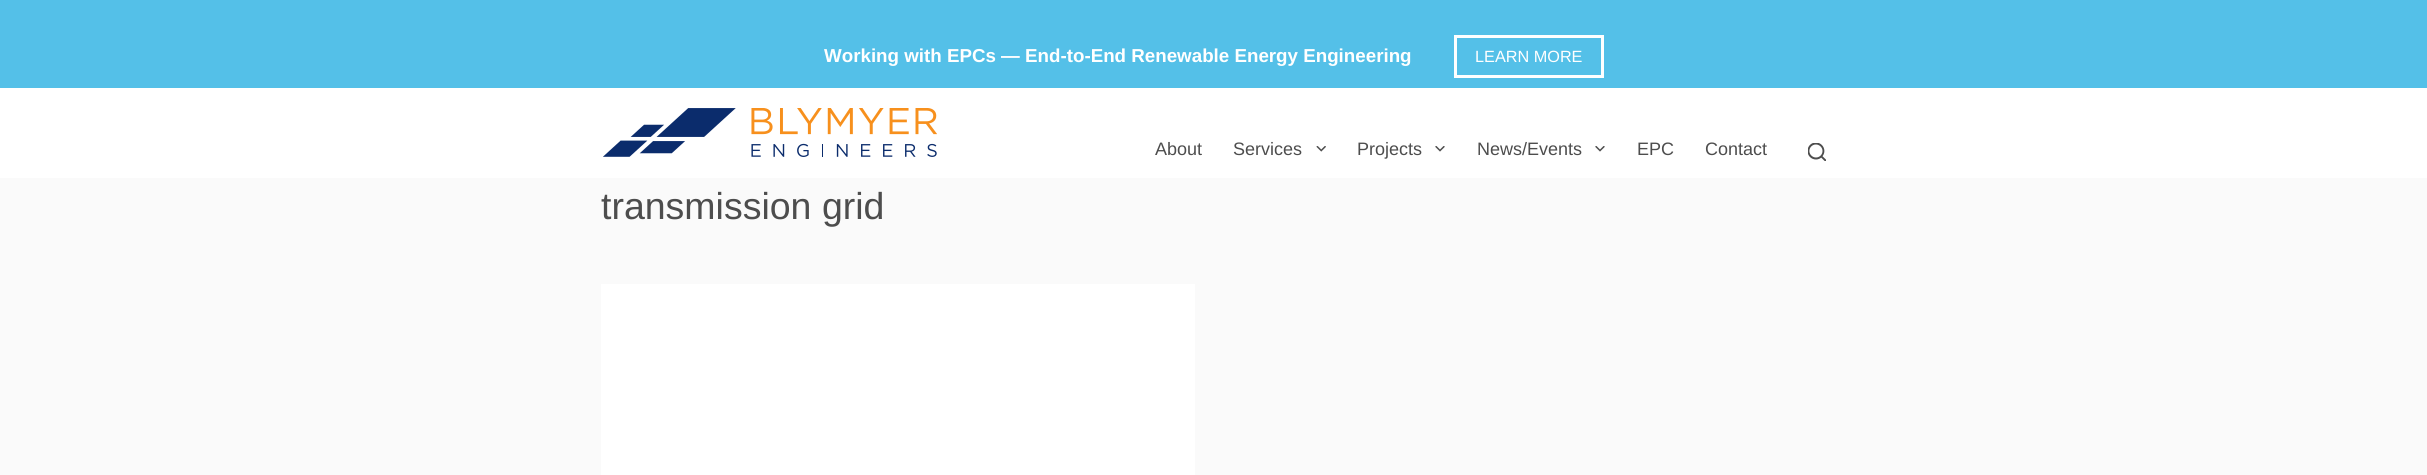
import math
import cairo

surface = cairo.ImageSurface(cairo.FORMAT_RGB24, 2427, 475)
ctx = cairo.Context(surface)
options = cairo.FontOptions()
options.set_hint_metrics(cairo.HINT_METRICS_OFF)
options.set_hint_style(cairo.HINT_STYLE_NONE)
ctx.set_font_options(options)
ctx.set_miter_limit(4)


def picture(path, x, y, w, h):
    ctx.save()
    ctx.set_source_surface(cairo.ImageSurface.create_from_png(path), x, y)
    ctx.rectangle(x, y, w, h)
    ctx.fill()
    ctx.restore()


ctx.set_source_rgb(0.98, 0.98, 0.98)
ctx.paint()
ctx.set_source_rgb(0.329, 0.753, 0.91)
ctx.rectangle(0, 0, 2427, 88)
ctx.fill()
ctx.select_font_face("Liberation Sans", cairo.FONT_SLANT_NORMAL, cairo.FONT_WEIGHT_BOLD)
ctx.set_font_size(18.75)
ctx.set_source_rgb(1, 1, 1)
ctx.move_to(824, 62)
ctx.show_text("Working with EPCs — End-to-End Renewable Energy Engineering")
ctx.rectangle(1455.5, 36.5, 147, 40)
ctx.set_line_width(3)
ctx.stroke()
ctx.select_font_face("Liberation Sans")
ctx.set_font_size(16.25)
ctx.move_to(1475, 62)
ctx.show_text("LEARN MORE")
ctx.rectangle(0, 88, 2427, 90)
ctx.fill()
picture("img1.png", 603, 108, 334, 49)
ctx.set_font_size(18)
ctx.set_source_rgb(0.302, 0.302, 0.302)
ctx.move_to(1155, 155)
ctx.show_text("About")
ctx.move_to(1233, 155)
ctx.show_text("Services")
picture("img2.png", 1316, 146, 10, 6)
ctx.move_to(1357, 155)
ctx.show_text("Projects")
picture("img3.png", 1435, 146, 10, 6)
ctx.move_to(1477, 155)
ctx.show_text("News/Events")
picture("img3.png", 1595, 146, 10, 6)
ctx.move_to(1637, 155)
ctx.show_text("EPC")
ctx.move_to(1705, 155)
ctx.show_text("Contact")
picture("img4.png", 1808, 143, 18, 18)
ctx.set_font_size(37.5)
ctx.move_to(601, 219)
ctx.show_text("transmission grid")
ctx.set_source_rgb(1, 1, 1)
ctx.rectangle(601, 284, 594, 191)
ctx.fill()
surface.write_to_png("page.png")
